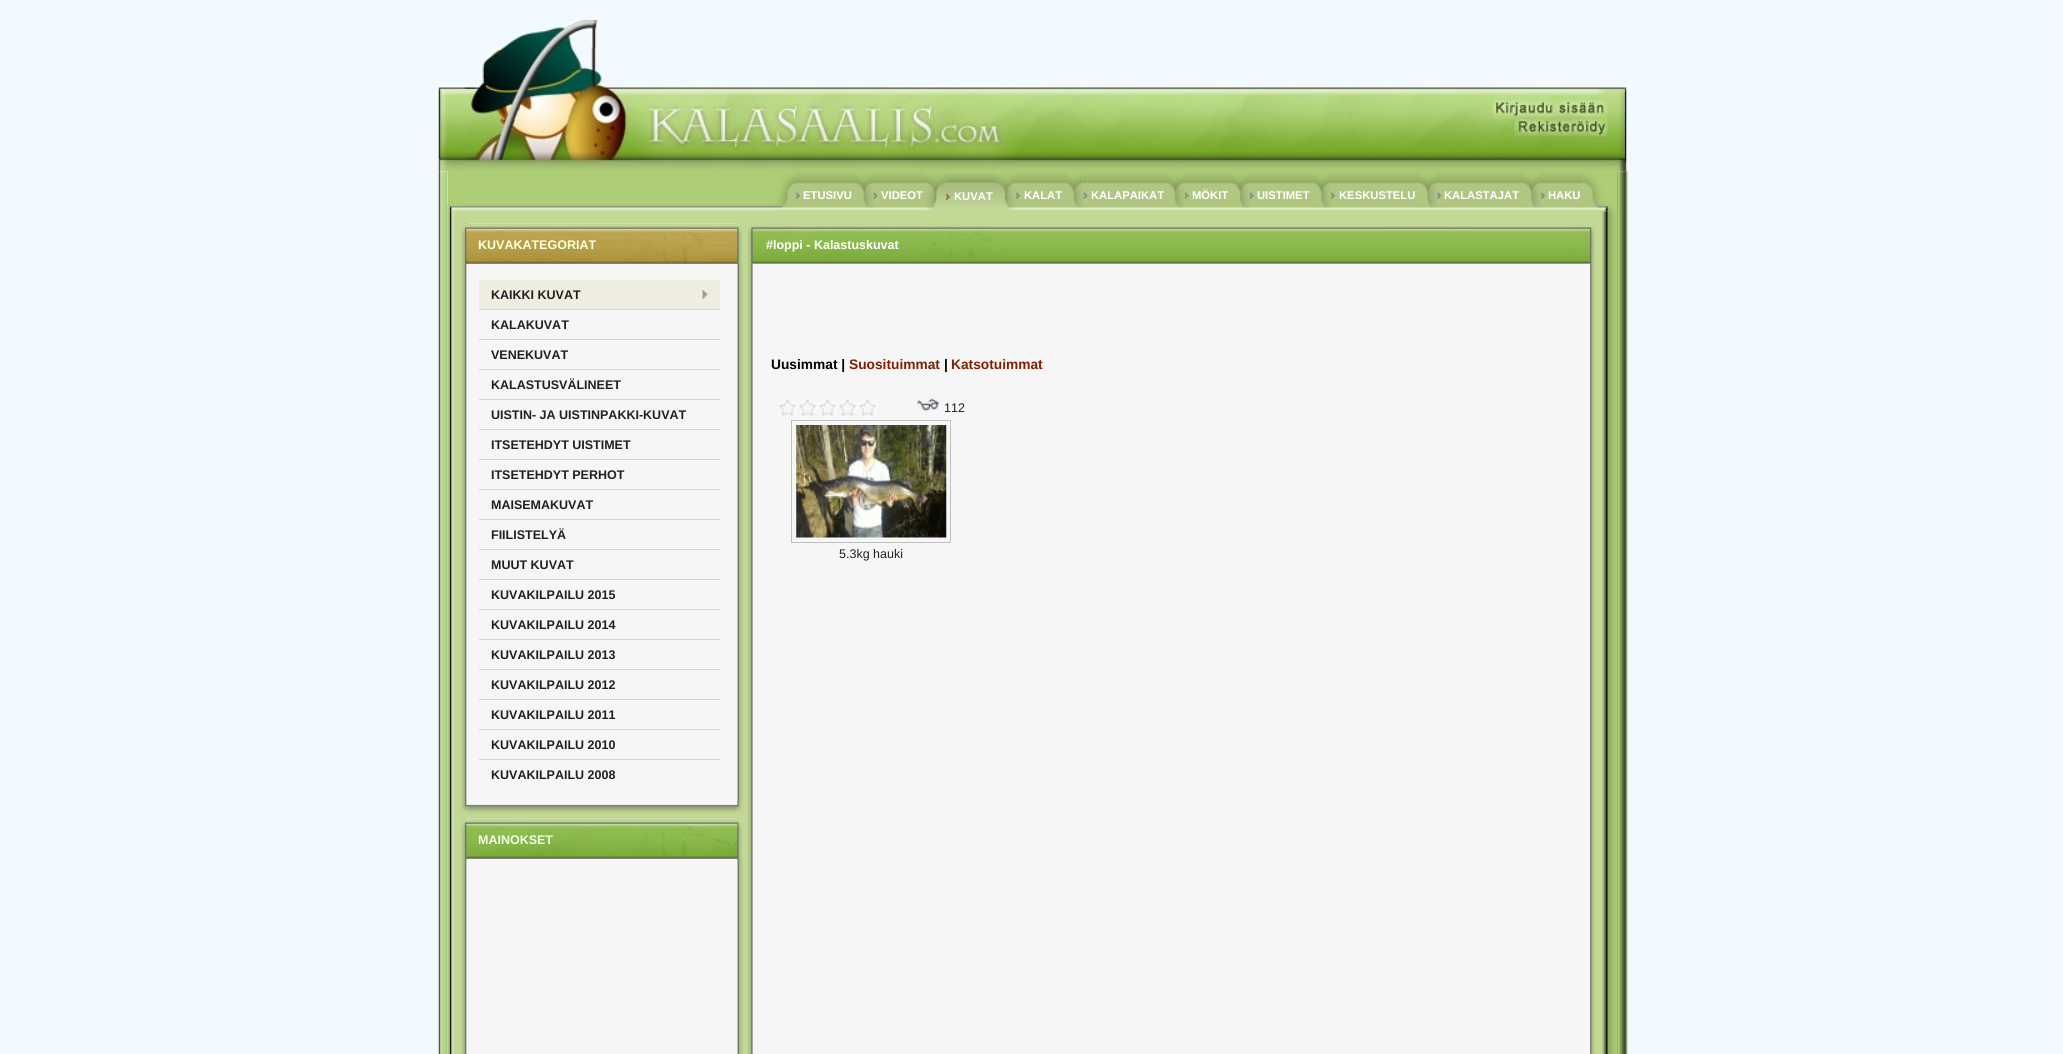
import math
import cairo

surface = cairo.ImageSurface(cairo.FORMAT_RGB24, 2063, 1054)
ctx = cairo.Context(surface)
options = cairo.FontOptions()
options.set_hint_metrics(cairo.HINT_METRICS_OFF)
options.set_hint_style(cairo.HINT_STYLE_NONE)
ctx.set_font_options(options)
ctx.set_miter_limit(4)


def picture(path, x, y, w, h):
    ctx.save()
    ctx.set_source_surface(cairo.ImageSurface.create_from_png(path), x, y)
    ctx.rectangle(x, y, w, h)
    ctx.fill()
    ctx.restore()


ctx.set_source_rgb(0.949, 0.976, 1)
ctx.paint()
picture("img1.png", 438, 19, 1189, 153)
picture("img2.png", 1492, 100, 116, 19)
picture("img3.png", 1514, 118, 94, 19)
picture("img4.png", 438, 171, 10, 883)
ctx.set_source_rgb(0.678, 0.808, 0.467)
ctx.rectangle(448, 171, 1170, 40)
ctx.fill()
picture("img5.png", 447, 203, 1171, 9)
picture("img6.png", 775, 172, 22, 39)
picture("img7.png", 796, 172, 4, 39)
picture("img8.png", 800, 172, 55, 39)
ctx.select_font_face("Liberation Sans", cairo.FONT_SLANT_NORMAL, cairo.FONT_WEIGHT_BOLD)
ctx.set_font_size(11.25)
ctx.set_source_rgb(1, 1, 1)
ctx.move_to(803, 199)
ctx.show_text("ETUSIVU")
picture("img9.png", 855, 172, 19, 39)
picture("img11.png", 877, 172, 48, 39)
picture("img10.png", 873, 172, 5, 39)
ctx.move_to(881, 199)
ctx.show_text("VIDEOT")
picture("img12.png", 925, 173, 22, 38)
picture("img13.png", 946, 172, 4, 39)
picture("img14.png", 950, 172, 45, 39)
ctx.move_to(954, 200)
ctx.show_text("KUVAT")
picture("img15.png", 995, 173, 22, 38)
picture("img16.png", 1016, 172, 4, 39)
picture("img17.png", 1020, 172, 45, 39)
ctx.move_to(1024, 199)
ctx.show_text("KALAT")
picture("img9.png", 1065, 172, 19, 39)
picture("img18.png", 1087, 172, 80, 39)
picture("img10.png", 1083, 172, 5, 39)
ctx.move_to(1091, 199)
ctx.show_text("KALAPAIKAT")
picture("img19.png", 1166, 172, 19, 39)
picture("img21.png", 1188, 172, 44, 39)
picture("img20.png", 1185, 172, 4, 39)
ctx.move_to(1192, 199)
ctx.show_text("MÖKIT")
picture("img19.png", 1231, 172, 19, 39)
picture("img22.png", 1253, 172, 60, 39)
picture("img20.png", 1250, 172, 4, 39)
ctx.move_to(1257, 199)
ctx.show_text("UISTIMET")
picture("img23.png", 1312, 172, 20, 39)
picture("img24.png", 1331, 172, 4, 39)
picture("img25.png", 1335, 172, 84, 39)
ctx.move_to(1339, 199)
ctx.show_text("KESKUSTELU")
picture("img26.png", 1419, 172, 19, 39)
picture("img28.png", 1441, 172, 82, 39)
picture("img27.png", 1437, 172, 5, 39)
ctx.move_to(1444, 199)
ctx.show_text("KALASTAJAT")
picture("img29.png", 1522, 172, 20, 39)
picture("img30.png", 1541, 172, 4, 39)
picture("img31.png", 1545, 172, 39, 39)
ctx.move_to(1548, 199)
ctx.show_text("HAKU")
ctx.set_source_rgb(0.761, 0.851, 0.584)
ctx.rectangle(448, 211, 1170, 843)
ctx.fill()
picture("img33.png", 447, 211, 1171, 843)
picture("img32.png", 1584, 172, 21, 40)
picture("img34.png", 461, 223, 282, 831)
picture("img35.png", 460, 223, 283, 41)
ctx.set_font_size(12.5)
ctx.set_source_rgb(1, 1, 0.882)
ctx.move_to(478, 249)
ctx.show_text("KUVAKATEGORIAT")
ctx.set_source_rgb(0.937, 0.922, 0.878)
ctx.rectangle(479, 280, 241, 29)
ctx.fill()
picture("img36.png", 702, 290, 6, 9)
ctx.set_source_rgb(0.125, 0.125, 0.125)
ctx.move_to(491, 299)
ctx.show_text("KAIKKI KUVAT")
ctx.set_source_rgb(0.839, 0.839, 0.839)
ctx.rectangle(479, 309, 241, 1)
ctx.fill()
ctx.set_source_rgb(0.125, 0.125, 0.125)
ctx.move_to(491, 329)
ctx.show_text("KALAKUVAT")
ctx.set_source_rgb(0.839, 0.839, 0.839)
ctx.rectangle(479, 339, 241, 1)
ctx.fill()
ctx.set_source_rgb(0.125, 0.125, 0.125)
ctx.move_to(491, 359)
ctx.show_text("VENEKUVAT")
ctx.set_source_rgb(0.839, 0.839, 0.839)
ctx.rectangle(479, 369, 241, 1)
ctx.fill()
ctx.set_source_rgb(0.125, 0.125, 0.125)
ctx.move_to(491, 389)
ctx.show_text("KALASTUSVÄLINEET")
ctx.set_source_rgb(0.839, 0.839, 0.839)
ctx.rectangle(479, 399, 241, 1)
ctx.fill()
ctx.set_source_rgb(0.125, 0.125, 0.125)
ctx.move_to(491, 419)
ctx.show_text("UISTIN- JA UISTINPAKKI-KUVAT")
ctx.set_source_rgb(0.839, 0.839, 0.839)
ctx.rectangle(479, 429, 241, 1)
ctx.fill()
ctx.set_source_rgb(0.125, 0.125, 0.125)
ctx.move_to(491, 449)
ctx.show_text("ITSETEHDYT UISTIMET")
ctx.set_source_rgb(0.839, 0.839, 0.839)
ctx.rectangle(479, 459, 241, 1)
ctx.fill()
ctx.set_source_rgb(0.125, 0.125, 0.125)
ctx.move_to(491, 479)
ctx.show_text("ITSETEHDYT PERHOT")
ctx.set_source_rgb(0.839, 0.839, 0.839)
ctx.rectangle(479, 489, 241, 1)
ctx.fill()
ctx.set_source_rgb(0.125, 0.125, 0.125)
ctx.move_to(491, 509)
ctx.show_text("MAISEMAKUVAT")
ctx.set_source_rgb(0.839, 0.839, 0.839)
ctx.rectangle(479, 519, 241, 1)
ctx.fill()
ctx.set_source_rgb(0.125, 0.125, 0.125)
ctx.move_to(491, 539)
ctx.show_text("FIILISTELYÄ")
ctx.set_source_rgb(0.839, 0.839, 0.839)
ctx.rectangle(479, 549, 241, 1)
ctx.fill()
ctx.set_source_rgb(0.125, 0.125, 0.125)
ctx.move_to(491, 569)
ctx.show_text("MUUT KUVAT")
ctx.set_source_rgb(0.839, 0.839, 0.839)
ctx.rectangle(479, 579, 241, 1)
ctx.fill()
ctx.set_source_rgb(0.125, 0.125, 0.125)
ctx.move_to(491, 599)
ctx.show_text("KUVAKILPAILU 2015")
ctx.set_source_rgb(0.839, 0.839, 0.839)
ctx.rectangle(479, 609, 241, 1)
ctx.fill()
ctx.set_source_rgb(0.125, 0.125, 0.125)
ctx.move_to(491, 629)
ctx.show_text("KUVAKILPAILU 2014")
ctx.set_source_rgb(0.839, 0.839, 0.839)
ctx.rectangle(479, 639, 241, 1)
ctx.fill()
ctx.set_source_rgb(0.125, 0.125, 0.125)
ctx.move_to(491, 659)
ctx.show_text("KUVAKILPAILU 2013")
ctx.set_source_rgb(0.839, 0.839, 0.839)
ctx.rectangle(479, 669, 241, 1)
ctx.fill()
ctx.set_source_rgb(0.125, 0.125, 0.125)
ctx.move_to(491, 689)
ctx.show_text("KUVAKILPAILU 2012")
ctx.set_source_rgb(0.839, 0.839, 0.839)
ctx.rectangle(479, 699, 241, 1)
ctx.fill()
ctx.set_source_rgb(0.125, 0.125, 0.125)
ctx.move_to(491, 719)
ctx.show_text("KUVAKILPAILU 2011")
ctx.set_source_rgb(0.839, 0.839, 0.839)
ctx.rectangle(479, 729, 241, 1)
ctx.fill()
ctx.set_source_rgb(0.125, 0.125, 0.125)
ctx.move_to(491, 749)
ctx.show_text("KUVAKILPAILU 2010")
ctx.set_source_rgb(0.839, 0.839, 0.839)
ctx.rectangle(479, 759, 241, 1)
ctx.fill()
ctx.set_source_rgb(0.125, 0.125, 0.125)
ctx.move_to(491, 779)
ctx.show_text("KUVAKILPAILU 2008")
picture("img37.png", 460, 801, 283, 18)
picture("img38.png", 460, 818, 283, 41)
ctx.set_source_rgb(0.937, 1, 0.882)
ctx.move_to(478, 844)
ctx.show_text("MAINOKSET")
picture("img39.png", 745, 224, 850, 40)
ctx.set_source_rgb(1, 1, 1)
ctx.move_to(766, 249)
ctx.show_text("#loppi - Kalastuskuvat")
picture("img40.png", 745, 263, 851, 791)
ctx.set_source_rgb(0.965, 0.965, 0.965)
ctx.rectangle(1589, 264, 1, 790)
ctx.fill()
ctx.set_font_size(13.75)
ctx.set_source_rgb(0, 0, 0)
ctx.move_to(771, 369)
ctx.show_text("Uusimmat |")
ctx.set_source_rgb(0.498, 0.129, 0)
ctx.move_to(849, 369)
ctx.show_text("Suosituimmat")
ctx.set_source_rgb(0, 0, 0)
ctx.move_to(944, 369)
ctx.show_text("|")
ctx.set_source_rgb(0.498, 0.129, 0)
ctx.move_to(951, 369)
ctx.show_text("Katsotuimmat")
picture("img41.png", 778, 398, 99, 19)
picture("img42.png", 916, 398, 23, 14)
ctx.select_font_face("Liberation Sans")
ctx.set_font_size(12.5)
ctx.set_source_rgb(0.125, 0.125, 0.125)
ctx.move_to(944, 412)
ctx.show_text("112")
ctx.rectangle(791.5, 420.5, 159, 122)
ctx.set_source_rgb(0.749, 0.749, 0.749)
ctx.set_line_width(1)
ctx.stroke()
picture("img43.png", 796, 425, 151, 113)
ctx.set_source_rgb(0.125, 0.125, 0.125)
ctx.move_to(839, 558)
ctx.show_text("5.3kg hauki")
picture("img44.png", 1617, 171, 11, 883)
surface.write_to_png("page.png")
